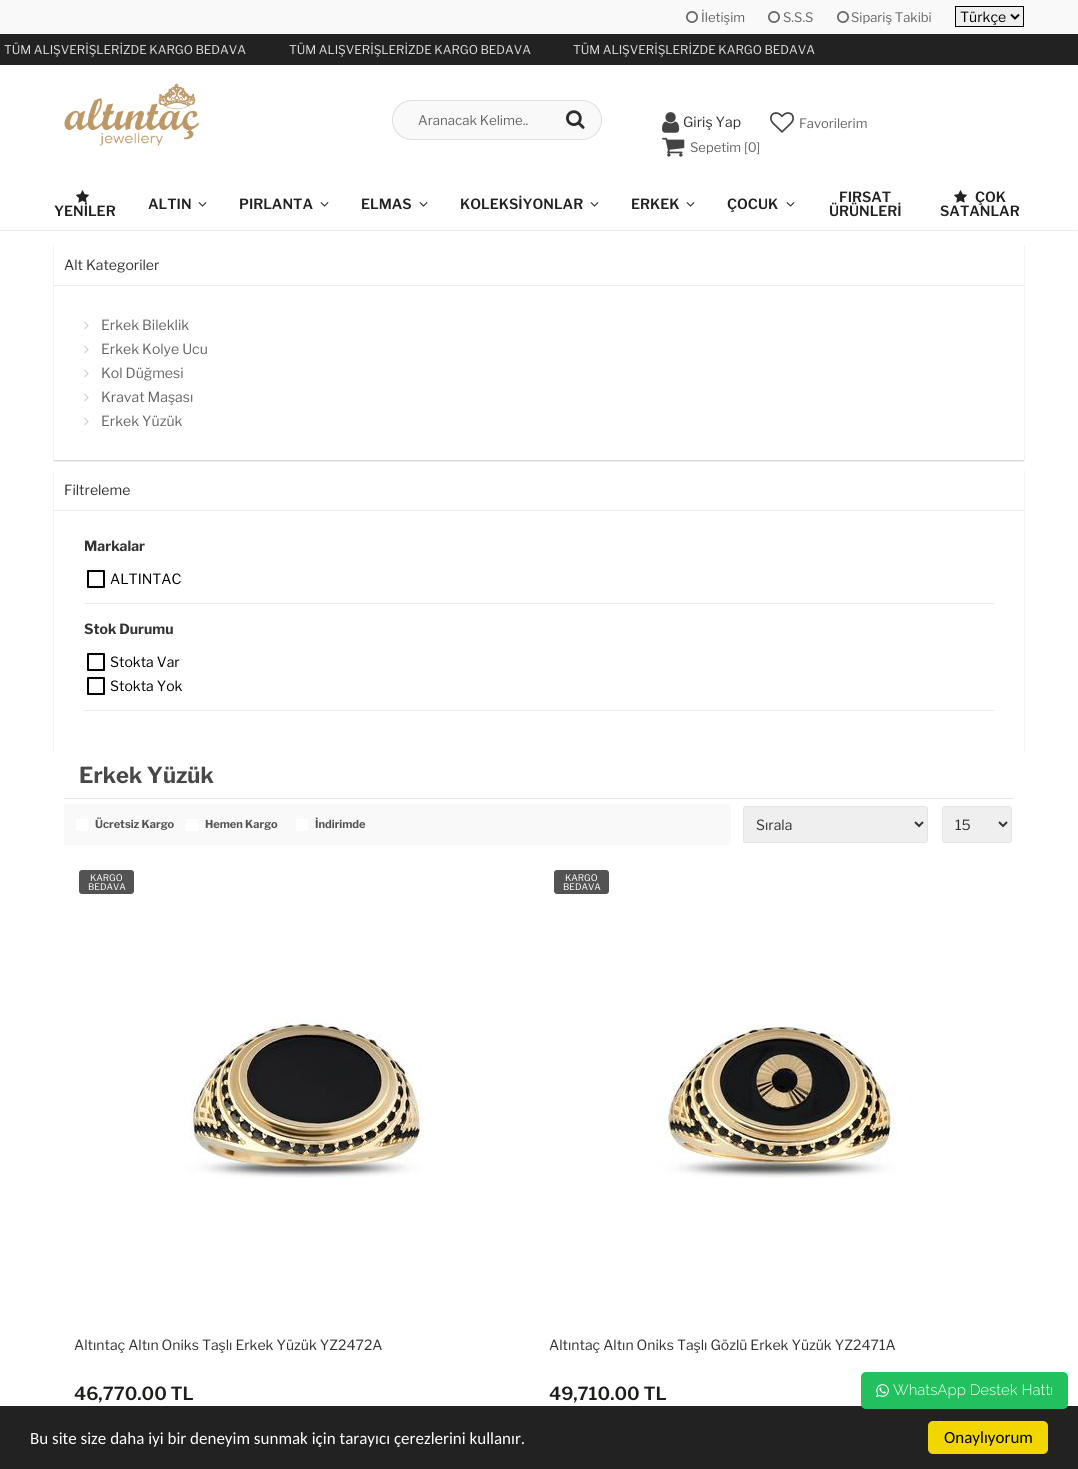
import math
import cairo

surface = cairo.ImageSurface(cairo.FORMAT_RGB24, 1078, 1469)
ctx = cairo.Context(surface)
options = cairo.FontOptions()
options.set_hint_metrics(cairo.HINT_METRICS_OFF)
options.set_hint_style(cairo.HINT_STYLE_NONE)
ctx.set_font_options(options)
ctx.set_miter_limit(4)


def round_rect(x, y, w, h, r):
    ctx.new_sub_path()
    for i, (u, v) in enumerate([(x + w - r, y + h - r), (x + r, y + h - r), (x + r, y + r), (x + w - r, y + r)]):
        ctx.arc(u, v, r, i * math.pi / 2, (i + 1) * math.pi / 2)
    ctx.close_path()


def shadow(x, y, w, h, r, blur, alpha):
    ctx.push_group_with_content(cairo.CONTENT_ALPHA)
    ctx.set_operator(cairo.OPERATOR_SOURCE)
    for i in range(15, -16, -2):
        e = blur * i / 6
        if min(w, h) + 2 * e > 0:
            ctx.set_source_rgba(0, 0, 0, alpha * math.erfc((i - 1) / 8.5) / 2)
            round_rect(x - e, y - e, w + 2 * e, h + 2 * e, max(0, min(r + e + blur * .6, min(w, h) / 2 + e)))
            ctx.fill()
    ctx.mask(ctx.pop_group())


def picture(path, x, y, w, h):
    ctx.save()
    ctx.set_source_surface(cairo.ImageSurface.create_from_png(path), x, y)
    ctx.rectangle(x, y, w, h)
    ctx.fill()
    ctx.restore()


ctx.set_source_rgb(1, 1, 1)
ctx.paint()
ctx.set_source_rgb(0.976, 0.976, 0.976)
ctx.rectangle(0, 0, 1078, 34)
ctx.fill()
picture("img1.png", 686, 11, 12, 12)
ctx.select_font_face("Libre Franklin")
ctx.set_font_size(13)
ctx.set_source_rgb(0.4, 0.4, 0.4)
ctx.move_to(701, 22)
ctx.show_text("İletişim")
picture("img1.png", 768, 11, 12, 12)
ctx.move_to(783, 22)
ctx.show_text("S.S.S")
picture("img1.png", 837, 11, 12, 12)
ctx.move_to(851, 22)
ctx.show_text("Sipariş Takibi")
ctx.set_source_rgb(0.937, 0.937, 0.937)
ctx.rectangle(955.5, 6.5, 68, 20)
ctx.fill_preserve()
ctx.set_source_rgb(0, 0, 0)
ctx.set_line_width(1)
ctx.stroke()
ctx.new_path()
ctx.move_to(1011, 14.5)
ctx.line_to(1015, 18.5)
ctx.line_to(1019, 14.5)
ctx.set_line_width(2)
ctx.stroke()
ctx.set_font_size(14)
ctx.move_to(960, 22)
ctx.show_text("Türkçe")
ctx.set_source_rgb(0.133, 0.133, 0.133)
ctx.rectangle(0, 34, 1078, 31)
ctx.fill()
ctx.set_font_size(12)
ctx.set_source_rgb(0.867, 0.867, 0.867)
ctx.move_to(4, 54)
ctx.show_text("TÜM ALIŞVERİŞLERİZDE KARGO BEDAVA")
ctx.move_to(289, 54)
ctx.show_text("TÜM ALIŞVERİŞLERİZDE KARGO BEDAVA")
ctx.move_to(573, 54)
ctx.show_text("TÜM ALIŞVERİŞLERİZDE KARGO BEDAVA")
picture("img2.png", 64, 83, 135, 63)
ctx.set_source_rgb(0.976, 0.976, 0.976)
round_rect(392.5, 100.5, 209, 39, 19.5)
ctx.fill_preserve()
ctx.set_source_rgb(0.867, 0.867, 0.867)
ctx.set_line_width(1)
ctx.stroke()
ctx.set_font_size(13.25)
ctx.set_source_rgb(0.4, 0.4, 0.4)
ctx.move_to(418, 125)
ctx.show_text("Aranacak Kelime..")
picture("img3.png", 566, 110, 19, 19)
picture("img4.png", 662, 112, 18, 21)
ctx.set_font_size(14)
ctx.set_source_rgb(0.2, 0.2, 0.2)
ctx.move_to(683, 127)
ctx.show_text("Giriş Yap")
picture("img5.png", 770, 112, 24, 21)
ctx.set_font_size(13)
ctx.set_source_rgb(0.4, 0.4, 0.4)
ctx.move_to(799, 128)
ctx.show_text("Favorilerim")
picture("img6.png", 662, 137, 23, 20)
ctx.move_to(690, 152)
ctx.show_text("Sepetim [0]")
ctx.save()
ctx.rectangle(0, 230, 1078, 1)
ctx.clip()
ctx.set_source_rgb(0, 0, 0)
shadow(0, 179, 1078, 52, 0, 0.5, 0.1)
ctx.restore()
picture("img7.png", 76, 190, 13, 13)
ctx.select_font_face("Libre Franklin SemiBold")
ctx.set_font_size(14)
ctx.set_source_rgb(0.133, 0.133, 0.133)
ctx.move_to(54, 216)
ctx.show_text("YENİLER")
ctx.move_to(148, 209)
ctx.show_text("ALTIN")
picture("img8.png", 198, 202, 9, 5)
ctx.move_to(239, 209)
ctx.show_text("PIRLANTA")
picture("img8.png", 320, 202, 9, 5)
ctx.move_to(361, 209)
ctx.show_text("ELMAS")
picture("img8.png", 419, 202, 9, 5)
ctx.move_to(460, 209)
ctx.show_text("KOLEKSİYONLAR")
picture("img8.png", 590, 202, 9, 5)
ctx.move_to(631, 209)
ctx.show_text("ERKEK")
picture("img8.png", 686, 202, 9, 5)
ctx.move_to(727, 209)
ctx.show_text("ÇOCUK")
picture("img8.png", 786, 202, 9, 5)
ctx.move_to(839, 202)
ctx.show_text("FIRSAT")
ctx.move_to(829, 216)
ctx.show_text("ÜRÜNLERİ")
picture("img7.png", 954, 190, 13, 13)
ctx.move_to(975, 202)
ctx.show_text("ÇOK")
ctx.move_to(940, 216)
ctx.show_text("SATANLAR")
ctx.save()
ctx.set_fill_rule(cairo.FILL_RULE_EVEN_ODD)
ctx.new_path()
ctx.move_to(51, 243)
ctx.line_to(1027, 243)
ctx.line_to(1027, 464)
ctx.line_to(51, 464)
ctx.close_path()
ctx.move_to(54, 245)
ctx.line_to(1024, 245)
ctx.line_to(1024, 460)
ctx.line_to(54, 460)
ctx.close_path()
ctx.clip()
ctx.set_source_rgb(0, 0, 0)
shadow(54, 246, 970, 215, 0, 0.5, 0.2)
ctx.restore()
ctx.set_source_rgb(0.918, 0.918, 0.918)
ctx.rectangle(54, 285, 970, 1)
ctx.fill()
ctx.select_font_face("Libre Franklin")
ctx.set_source_rgb(0.2, 0.2, 0.2)
ctx.move_to(64, 270)
ctx.show_text("Alt Kategoriler")
picture("img9.png", 84, 321, 5, 9)
ctx.set_source_rgb(0.4, 0.4, 0.4)
ctx.move_to(101, 330)
ctx.show_text("Erkek Bileklik")
picture("img9.png", 84, 345, 5, 9)
ctx.move_to(101, 354)
ctx.show_text("Erkek Kolye Ucu")
picture("img9.png", 84, 369, 5, 9)
ctx.move_to(101, 378)
ctx.show_text("Kol Düğmesi")
picture("img9.png", 84, 393, 5, 9)
ctx.move_to(101, 402)
ctx.show_text("Kravat Maşası")
picture("img9.png", 84, 417, 5, 9)
ctx.move_to(101, 426)
ctx.show_text("Erkek Yüzük")
ctx.save()
ctx.set_fill_rule(cairo.FILL_RULE_EVEN_ODD)
ctx.new_path()
ctx.move_to(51, 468)
ctx.line_to(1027, 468)
ctx.line_to(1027, 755)
ctx.line_to(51, 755)
ctx.close_path()
ctx.move_to(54, 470)
ctx.line_to(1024, 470)
ctx.line_to(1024, 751)
ctx.line_to(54, 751)
ctx.close_path()
ctx.clip()
ctx.set_source_rgb(0, 0, 0)
shadow(54, 471, 970, 281, 0, 0.5, 0.2)
ctx.restore()
ctx.set_source_rgb(0.918, 0.918, 0.918)
ctx.rectangle(54, 510, 970, 1)
ctx.fill()
ctx.set_source_rgb(0.2, 0.2, 0.2)
ctx.move_to(64, 495)
ctx.show_text("Filtreleme")
ctx.select_font_face("Libre Franklin", cairo.FONT_SLANT_NORMAL, cairo.FONT_WEIGHT_BOLD)
ctx.move_to(84, 551)
ctx.show_text("Markalar")
ctx.set_source_rgb(0.918, 0.918, 0.918)
ctx.rectangle(84, 603, 910, 1)
ctx.fill()
picture("img10.png", 87, 570, 18, 18)
ctx.select_font_face("Libre Franklin")
ctx.set_source_rgb(0, 0, 0)
ctx.move_to(110, 584)
ctx.show_text("ALTINTAC")
ctx.select_font_face("Libre Franklin", cairo.FONT_SLANT_NORMAL, cairo.FONT_WEIGHT_BOLD)
ctx.set_source_rgb(0.2, 0.2, 0.2)
ctx.move_to(84, 634)
ctx.show_text("Stok Durumu")
ctx.set_source_rgb(0.918, 0.918, 0.918)
ctx.rectangle(84, 710, 910, 1)
ctx.fill()
picture("img10.png", 87, 653, 18, 18)
ctx.select_font_face("Libre Franklin")
ctx.set_source_rgb(0, 0, 0)
ctx.move_to(110, 667)
ctx.show_text("Stokta Var")
picture("img10.png", 87, 677, 18, 18)
ctx.move_to(110, 691)
ctx.show_text("Stokta Yok")
ctx.set_source_rgb(1, 1, 1)
ctx.rectangle(54, 751, 970, 2)
ctx.fill()
ctx.set_source_rgb(0.898, 0.898, 0.898)
ctx.rectangle(64, 798, 950, 1)
ctx.fill()
ctx.select_font_face("Libre Franklin", cairo.FONT_SLANT_NORMAL, cairo.FONT_WEIGHT_BOLD)
ctx.set_font_size(22)
ctx.set_source_rgb(0.282, 0.282, 0.282)
ctx.move_to(79, 783)
ctx.show_text("Erkek Yüzük")
ctx.set_source_rgb(0.976, 0.976, 0.976)
ctx.rectangle(64, 804, 667, 41)
ctx.fill()
ctx.set_source_rgb(1, 1, 1)
ctx.rectangle(76, 819, 12, 12)
ctx.fill()
ctx.set_font_size(11)
ctx.set_source_rgb(0.325, 0.325, 0.325)
ctx.move_to(95, 828)
ctx.show_text("Ücretsiz Kargo")
ctx.set_source_rgb(1, 1, 1)
ctx.rectangle(186, 819, 12, 12)
ctx.fill()
ctx.set_source_rgb(0.325, 0.325, 0.325)
ctx.move_to(205, 828)
ctx.show_text("Hemen Kargo")
ctx.set_source_rgb(1, 1, 1)
ctx.rectangle(296, 819, 12, 12)
ctx.fill()
ctx.set_source_rgb(0.325, 0.325, 0.325)
ctx.move_to(315, 828)
ctx.show_text("İndirimde")
ctx.set_source_rgb(0.937, 0.937, 0.937)
round_rect(743.5, 806.5, 184, 36, 2.5)
ctx.fill_preserve()
ctx.set_source_rgb(0.894, 0.894, 0.894)
ctx.stroke()
ctx.new_path()
ctx.move_to(915, 822)
ctx.line_to(919, 826)
ctx.line_to(923, 822)
ctx.set_source_rgb(0.2, 0.2, 0.2)
ctx.set_line_width(2)
ctx.stroke()
ctx.select_font_face("Libre Franklin")
ctx.set_font_size(14)
ctx.move_to(756, 830)
ctx.show_text("Sırala")
ctx.set_source_rgb(0.937, 0.937, 0.937)
round_rect(942.5, 806.5, 69, 36, 2.5)
ctx.fill_preserve()
ctx.set_source_rgb(0.894, 0.894, 0.894)
ctx.set_line_width(1)
ctx.stroke()
ctx.new_path()
ctx.move_to(999, 822)
ctx.line_to(1003, 826)
ctx.line_to(1007, 822)
ctx.set_source_rgb(0.2, 0.2, 0.2)
ctx.set_line_width(2)
ctx.stroke()
ctx.move_to(955, 830)
ctx.show_text("15")
ctx.set_source_rgb(0.325, 0.325, 0.325)
round_rect(79, 870, 55, 24, 3)
ctx.fill()
ctx.set_font_size(9)
ctx.set_source_rgb(1, 1, 1)
ctx.move_to(90, 881)
ctx.show_text("KARGO")
ctx.move_to(88, 890)
ctx.show_text("BEDAVA")
picture("img11.png", 183, 1018, 239, 160)
ctx.set_font_size(14)
ctx.set_source_rgb(0.2, 0.2, 0.2)
ctx.move_to(74, 1350)
ctx.show_text("Altıntaç Altın Oniks Taşlı Erkek Yüzük YZ2472A")
ctx.select_font_face("Libre Franklin SemiBold")
ctx.set_font_size(18)
ctx.set_source_rgb(0.114, 0.114, 0.106)
ctx.move_to(74, 1400)
ctx.show_text("46,770.00 TL")
ctx.set_source_rgb(0.325, 0.325, 0.325)
round_rect(554, 870, 55, 24, 3)
ctx.fill()
ctx.select_font_face("Libre Franklin")
ctx.set_font_size(9)
ctx.set_source_rgb(1, 1, 1)
ctx.move_to(565, 881)
ctx.show_text("KARGO")
ctx.move_to(563, 890)
ctx.show_text("BEDAVA")
picture("img12.png", 657, 1022, 240, 156)
ctx.set_font_size(14)
ctx.set_source_rgb(0.2, 0.2, 0.2)
ctx.move_to(549, 1350)
ctx.show_text("Altıntaç Altın Oniks Taşlı Gözlü Erkek Yüzük YZ2471A")
ctx.select_font_face("Libre Franklin SemiBold")
ctx.set_font_size(18)
ctx.set_source_rgb(0.114, 0.114, 0.106)
ctx.move_to(549, 1400)
ctx.show_text("49,710.00 TL")
ctx.set_source_rgb(0.133, 0.133, 0.133)
ctx.rectangle(0, 1406, 1078, 63)
ctx.fill()
ctx.set_source_rgb(0.133, 0.757, 0.369)
round_rect(861, 1372, 207, 37, 5)
ctx.fill()
picture("img13.png", 876, 1384, 13, 13)
ctx.select_font_face("Raleway Light")
ctx.set_font_size(15)
ctx.set_source_rgb(1, 1, 1)
ctx.move_to(893, 1395)
ctx.show_text("WhatsApp Destek Hattı")
ctx.select_font_face("Carlito")
ctx.set_font_size(17)
ctx.move_to(30, 1444)
ctx.show_text("Bu site size daha iyi bir deneyim sunmak için tarayıcı çerezlerini kullanır.")
ctx.set_source_rgb(0.945, 0.839, 0)
round_rect(928, 1421, 120, 33, 5)
ctx.fill()
ctx.set_source_rgb(0, 0, 0)
ctx.move_to(944, 1443)
ctx.show_text("Onaylıyorum")
surface.write_to_png("page.png")
